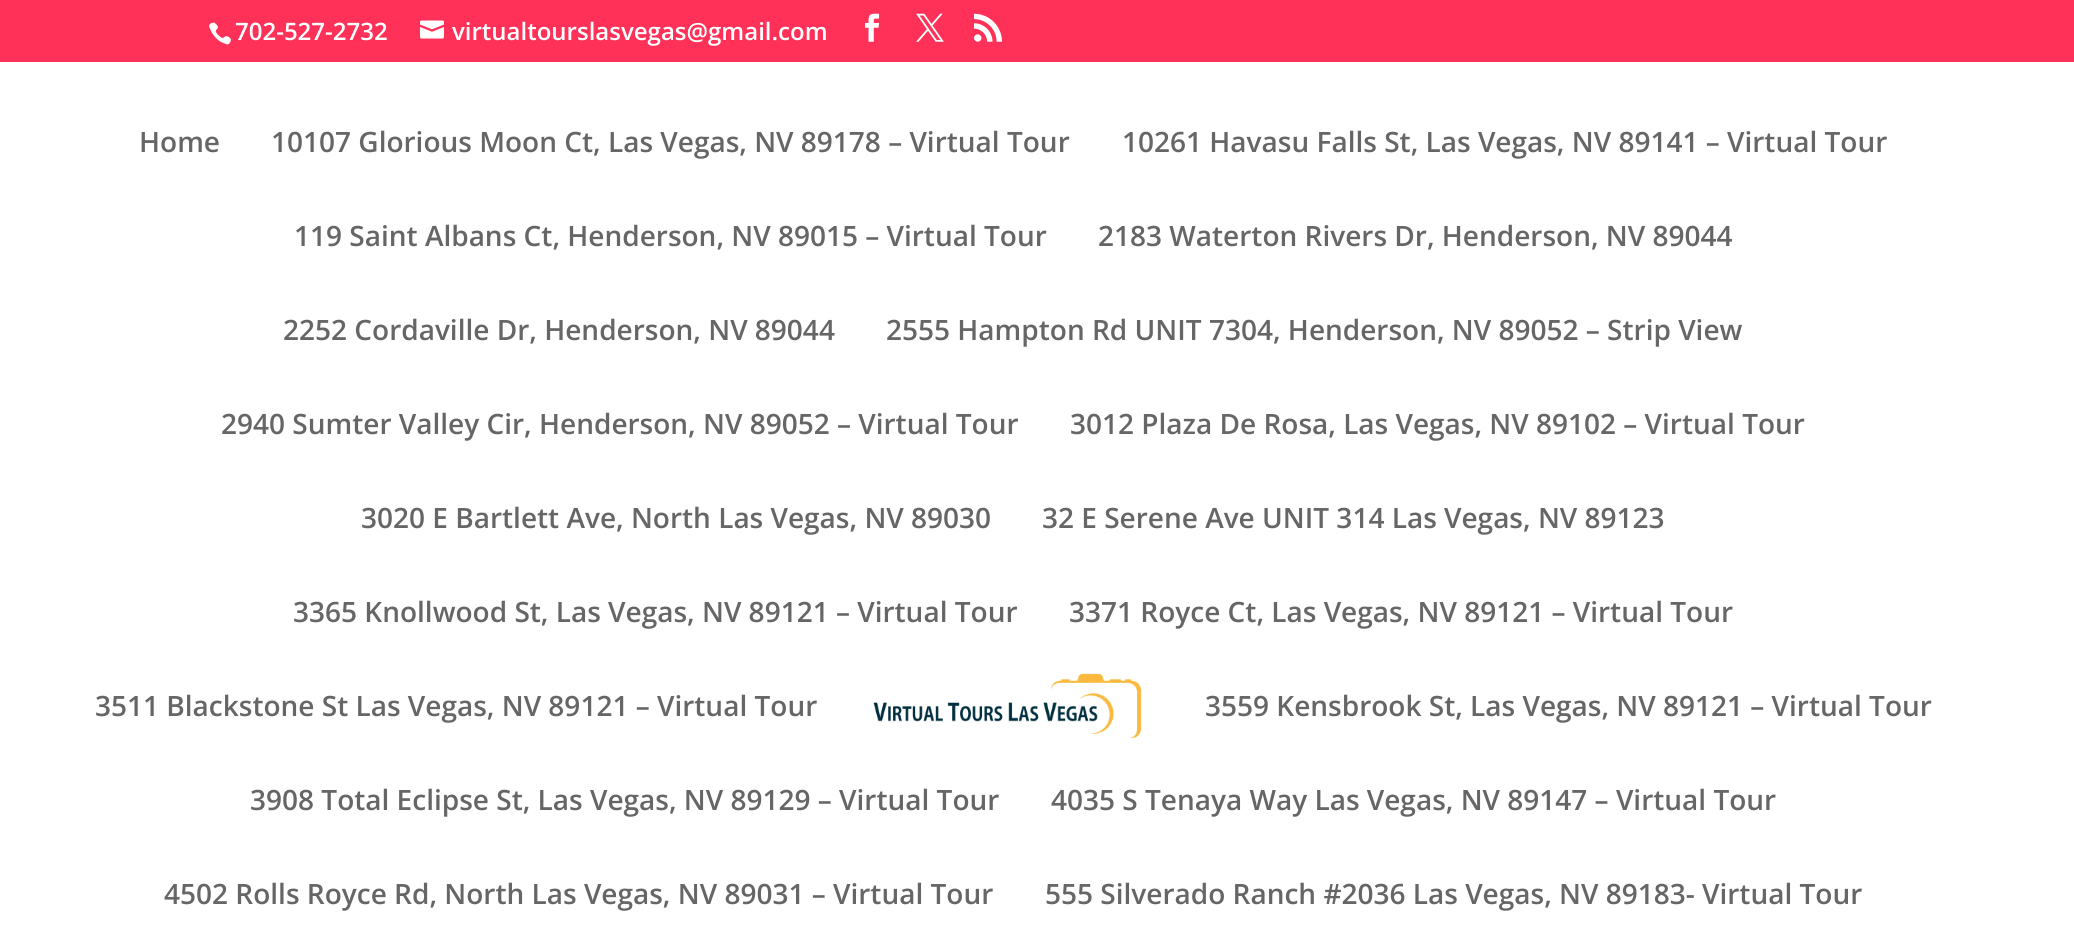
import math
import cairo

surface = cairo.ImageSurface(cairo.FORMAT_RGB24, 2074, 931)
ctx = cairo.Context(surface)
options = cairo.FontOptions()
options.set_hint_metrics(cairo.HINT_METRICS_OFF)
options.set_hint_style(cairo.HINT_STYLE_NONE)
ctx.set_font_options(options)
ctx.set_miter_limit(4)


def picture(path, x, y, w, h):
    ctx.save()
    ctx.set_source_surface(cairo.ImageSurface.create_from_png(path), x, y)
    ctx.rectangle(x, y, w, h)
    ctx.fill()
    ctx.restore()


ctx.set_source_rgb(1, 1, 1)
ctx.paint()
ctx.set_source_rgb(1, 0.192, 0.345)
ctx.rectangle(0, 0, 2074, 62)
ctx.fill()
picture("img1.png", 209, 22, 22, 23)
ctx.select_font_face("Open Sans SemiBold")
ctx.set_font_size(24)
ctx.set_source_rgb(1, 1, 1)
ctx.move_to(235, 40)
ctx.show_text("702-527-2732")
picture("img2.png", 420, 20, 24, 19)
ctx.move_to(452, 40)
ctx.show_text("virtualtourslasvegas@gmail.com")
picture("img3.png", 865, 13, 15, 29)
picture("img4.png", 916, 13, 28, 29)
picture("img5.png", 974, 13, 28, 29)
ctx.set_font_size(28)
ctx.set_source_rgb(0.4, 0.4, 0.4)
ctx.move_to(139, 152)
ctx.show_text("Home")
ctx.move_to(271, 152)
ctx.show_text("10107 Glorious Moon Ct, Las Vegas, NV 89178 – Virtual Tour")
ctx.move_to(1122, 152)
ctx.show_text("10261 Havasu Falls St, Las Vegas, NV 89141 – Virtual Tour")
ctx.move_to(294, 246)
ctx.show_text("119 Saint Albans Ct, Henderson, NV 89015 – Virtual Tour")
ctx.move_to(1098, 246)
ctx.show_text("2183 Waterton Rivers Dr, Henderson, NV 89044")
ctx.move_to(283, 340)
ctx.show_text("2252 Cordaville Dr, Henderson, NV 89044")
ctx.move_to(886, 340)
ctx.show_text("2555 Hampton Rd UNIT 7304, Henderson, NV 89052 – Strip View")
ctx.move_to(221, 434)
ctx.show_text("2940 Sumter Valley Cir, Henderson, NV 89052 – Virtual Tour")
ctx.move_to(1070, 434)
ctx.show_text("3012 Plaza De Rosa, Las Vegas, NV 89102 – Virtual Tour")
ctx.move_to(361, 528)
ctx.show_text("3020 E Bartlett Ave, North Las Vegas, NV 89030")
ctx.move_to(1042, 528)
ctx.show_text("32 E Serene Ave UNIT 314 Las Vegas, NV 89123")
ctx.move_to(293, 622)
ctx.show_text("3365 Knollwood St, Las Vegas, NV 89121 – Virtual Tour")
ctx.move_to(1069, 622)
ctx.show_text("3371 Royce Ct, Las Vegas, NV 89121 – Virtual Tour")
ctx.move_to(95, 716)
ctx.show_text("3511 Blackstone St Las Vegas, NV 89121 – Virtual Tour")
picture("img6.png", 873, 673, 269, 66)
ctx.move_to(1205, 716)
ctx.show_text("3559 Kensbrook St, Las Vegas, NV 89121 – Virtual Tour")
ctx.move_to(250, 810)
ctx.show_text("3908 Total Eclipse St, Las Vegas, NV 89129 – Virtual Tour")
ctx.move_to(1051, 810)
ctx.show_text("4035 S Tenaya Way Las Vegas, NV 89147 – Virtual Tour")
ctx.move_to(164, 904)
ctx.show_text("4502 Rolls Royce Rd, North Las Vegas, NV 89031 – Virtual Tour")
ctx.move_to(1045, 904)
ctx.show_text("555 Silverado Ranch #2036 Las Vegas, NV 89183- Virtual Tour")
surface.write_to_png("page.png")
